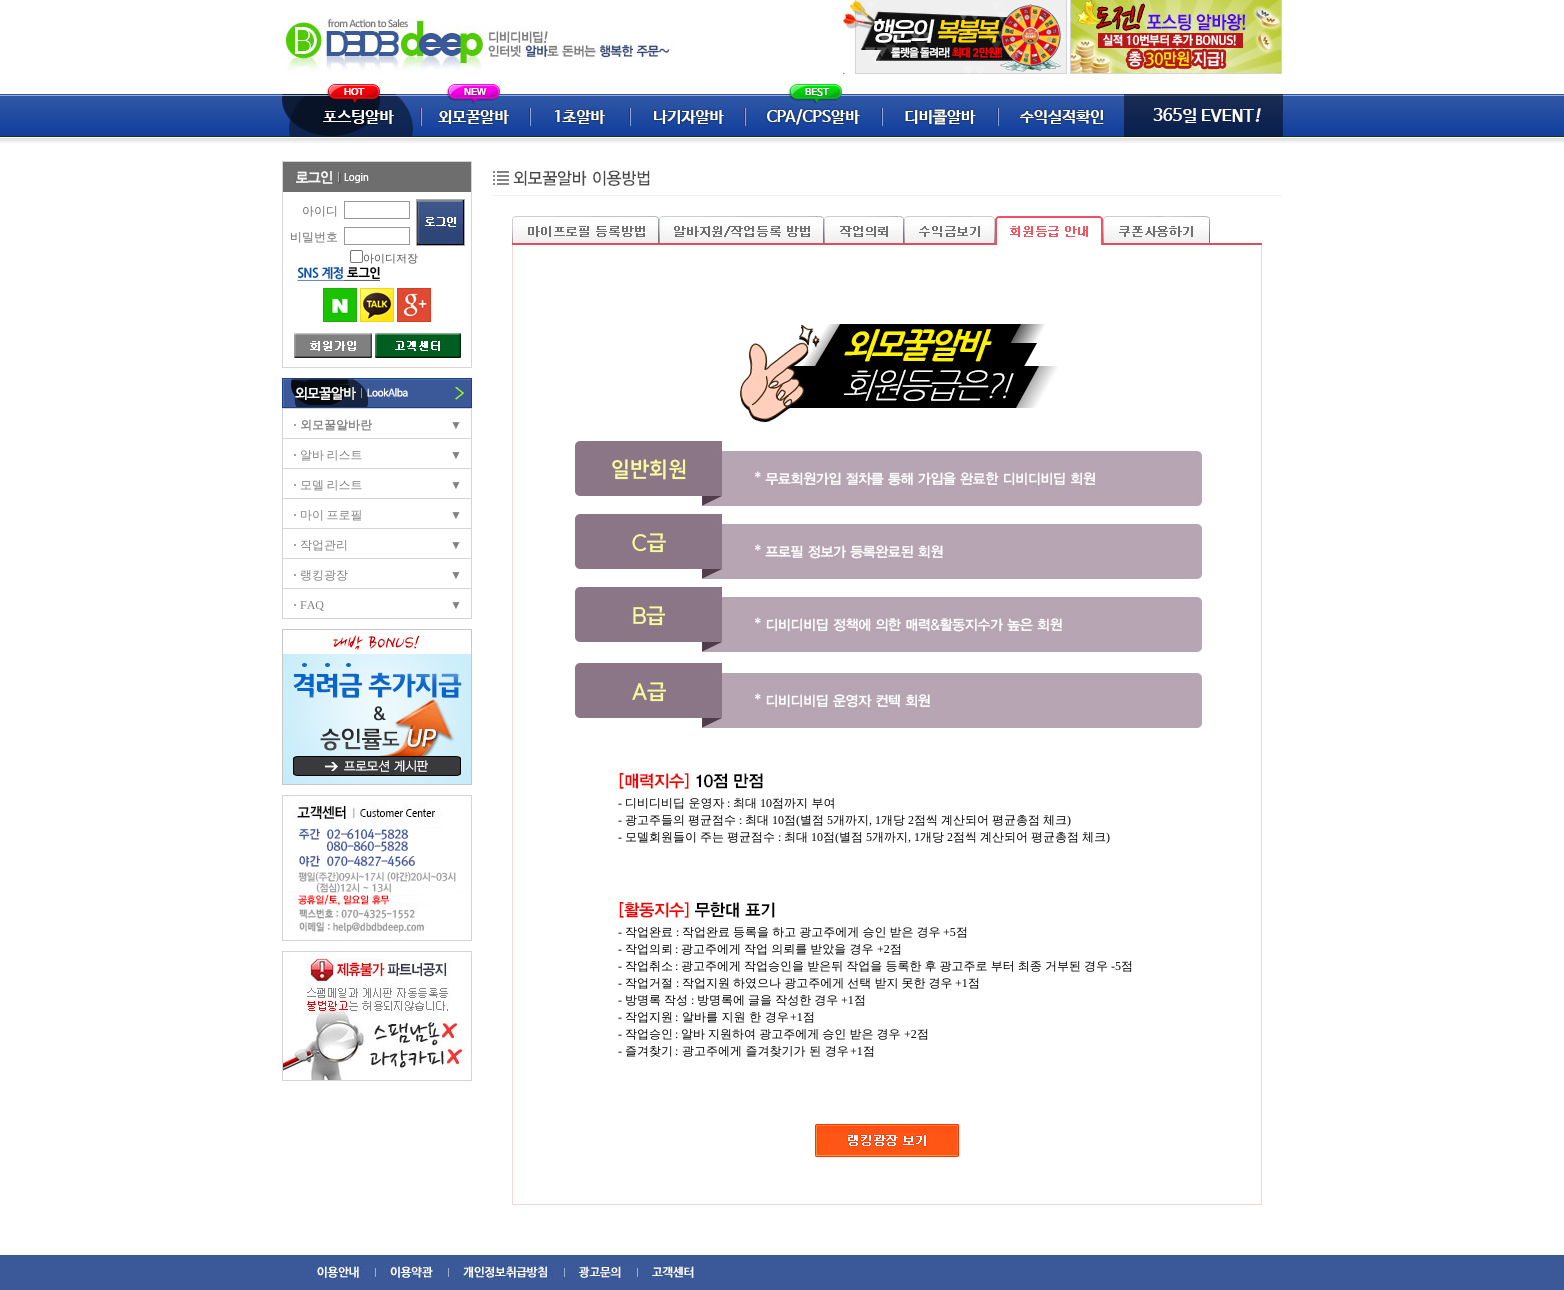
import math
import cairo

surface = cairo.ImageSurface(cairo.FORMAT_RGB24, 1564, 1290)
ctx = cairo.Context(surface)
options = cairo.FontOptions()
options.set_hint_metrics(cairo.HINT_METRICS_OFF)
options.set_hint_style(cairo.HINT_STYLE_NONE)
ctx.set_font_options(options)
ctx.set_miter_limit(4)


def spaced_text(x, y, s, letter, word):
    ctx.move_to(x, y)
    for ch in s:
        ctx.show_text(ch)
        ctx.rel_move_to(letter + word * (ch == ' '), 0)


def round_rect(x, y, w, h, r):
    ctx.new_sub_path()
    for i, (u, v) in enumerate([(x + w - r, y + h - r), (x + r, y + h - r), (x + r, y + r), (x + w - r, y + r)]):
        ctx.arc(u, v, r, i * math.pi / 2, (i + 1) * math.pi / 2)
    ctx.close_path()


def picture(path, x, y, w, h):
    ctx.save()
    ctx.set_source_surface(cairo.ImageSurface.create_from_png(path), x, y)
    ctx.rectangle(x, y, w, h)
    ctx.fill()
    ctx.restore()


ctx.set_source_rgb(1, 1, 1)
ctx.paint()
picture("img1.png", 282, 18, 392, 56)
picture("img2.png", 843, 0, 224, 74)
picture("img3.png", 1070, 0, 212, 74)
picture("img4.png", 0, 94, 1564, 49)
picture("img5.png", 282, 84, 140, 53)
picture("img6.png", 437, 84, 94, 42)
picture("img7.png", 553, 108, 78, 18)
picture("img8.png", 652, 108, 94, 18)
picture("img9.png", 765, 84, 118, 42)
picture("img10.png", 904, 108, 95, 18)
picture("img11.png", 1018, 108, 87, 18)
picture("img12.png", 1124, 94, 159, 43)
picture("img13.png", 282, 161, 2, 31)
picture("img14.png", 284, 161, 186, 31)
picture("img15.png", 295, 169, 74, 16)
picture("img16.png", 470, 161, 2, 31)
ctx.set_source_rgb(0.839, 0.839, 0.839)
ctx.rectangle(471, 192, 1, 176)
ctx.fill()
ctx.rectangle(282, 367, 190, 1)
ctx.fill()
ctx.rectangle(282, 192, 1, 176)
ctx.fill()
ctx.select_font_face("WenQuanYi Zen Hei Medium")
ctx.set_font_size(12)
ctx.set_source_rgb(0.424, 0.424, 0.424)
ctx.move_to(302, 215)
ctx.show_text("아이디")
ctx.rectangle(344.5, 201.5, 65, 17)
ctx.set_source_rgb(0.6, 0.6, 0.6)
ctx.set_line_width(1)
ctx.stroke()
ctx.rectangle(416.5, 199.5, 48, 46)
ctx.set_source_rgb(0.663, 0.663, 0.663)
ctx.stroke()
picture("img17.png", 417, 200, 47, 45)
ctx.set_source_rgb(0.424, 0.424, 0.424)
ctx.move_to(290, 241)
ctx.show_text("비밀번호")
ctx.rectangle(344.5, 227.5, 65, 17)
ctx.set_source_rgb(0.6, 0.6, 0.6)
ctx.stroke()
round_rect(350.5, 250.5, 12, 12, 1.5)
ctx.set_source_rgb(0.463, 0.463, 0.463)
ctx.stroke()
ctx.set_font_size(11)
ctx.set_source_rgb(0.306, 0.306, 0.306)
ctx.move_to(363, 262)
ctx.show_text("아이디저장")
picture("img18.png", 297, 267, 83, 14)
picture("img19.png", 323, 288, 34, 34)
picture("img20.png", 360, 288, 34, 34)
picture("img21.png", 397, 288, 34, 34)
picture("img22.png", 294, 333, 78, 25)
picture("img23.png", 375, 333, 86, 25)
picture("img24.png", 282, 378, 190, 30)
ctx.set_source_rgb(0.835, 0.835, 0.835)
ctx.rectangle(282, 408, 190, 211)
ctx.fill()
ctx.set_source_rgb(1, 1, 1)
ctx.rectangle(283, 409, 188, 29)
ctx.fill()
ctx.select_font_face("Liberation Serif", cairo.FONT_SLANT_NORMAL, cairo.FONT_WEIGHT_BOLD)
ctx.set_font_size(12)
ctx.set_source_rgb(0.506, 0.506, 0.506)
ctx.move_to(293, 429)
ctx.show_text("·")
ctx.select_font_face("WenQuanYi Zen Hei", cairo.FONT_SLANT_NORMAL, cairo.FONT_WEIGHT_BOLD)
ctx.move_to(300, 429)
ctx.show_text("외모꿀알바란")
ctx.select_font_face("Liberation Serif", cairo.FONT_SLANT_NORMAL, cairo.FONT_WEIGHT_BOLD)
ctx.move_to(450, 429)
ctx.show_text("▼")
ctx.set_source_rgb(1, 1, 1)
ctx.rectangle(283, 439, 188, 29)
ctx.fill()
ctx.set_source_rgb(0.506, 0.506, 0.506)
ctx.move_to(293, 459)
ctx.show_text("·")
ctx.select_font_face("WenQuanYi Zen Hei Medium")
spaced_text(300, 459, "알바 리스트", 0, -1)
ctx.select_font_face("Liberation Serif")
ctx.move_to(450, 459)
ctx.show_text("▼")
ctx.set_source_rgb(1, 1, 1)
ctx.rectangle(283, 469, 188, 29)
ctx.fill()
ctx.select_font_face("Liberation Serif", cairo.FONT_SLANT_NORMAL, cairo.FONT_WEIGHT_BOLD)
ctx.set_source_rgb(0.506, 0.506, 0.506)
ctx.move_to(293, 489)
ctx.show_text("·")
ctx.select_font_face("WenQuanYi Zen Hei Medium")
spaced_text(300, 489, "모델 리스트", 0, -1)
ctx.select_font_face("Liberation Serif")
ctx.move_to(450, 489)
ctx.show_text("▼")
ctx.set_source_rgb(1, 1, 1)
ctx.rectangle(283, 499, 188, 29)
ctx.fill()
ctx.select_font_face("Liberation Serif", cairo.FONT_SLANT_NORMAL, cairo.FONT_WEIGHT_BOLD)
ctx.set_source_rgb(0.506, 0.506, 0.506)
ctx.move_to(293, 519)
ctx.show_text("·")
ctx.select_font_face("WenQuanYi Zen Hei Medium")
spaced_text(300, 519, "마이 프로필", 0, -1)
ctx.select_font_face("Liberation Serif")
ctx.move_to(450, 519)
ctx.show_text("▼")
ctx.set_source_rgb(1, 1, 1)
ctx.rectangle(283, 529, 188, 29)
ctx.fill()
ctx.select_font_face("Liberation Serif", cairo.FONT_SLANT_NORMAL, cairo.FONT_WEIGHT_BOLD)
ctx.set_source_rgb(0.506, 0.506, 0.506)
ctx.move_to(293, 549)
ctx.show_text("·")
ctx.select_font_face("WenQuanYi Zen Hei Medium")
ctx.move_to(300, 549)
ctx.show_text("작업관리")
ctx.select_font_face("Liberation Serif")
ctx.move_to(450, 549)
ctx.show_text("▼")
ctx.set_source_rgb(1, 1, 1)
ctx.rectangle(283, 559, 188, 29)
ctx.fill()
ctx.select_font_face("Liberation Serif", cairo.FONT_SLANT_NORMAL, cairo.FONT_WEIGHT_BOLD)
ctx.set_source_rgb(0.506, 0.506, 0.506)
ctx.move_to(293, 579)
ctx.show_text("·")
ctx.select_font_face("WenQuanYi Zen Hei Medium")
ctx.move_to(300, 579)
ctx.show_text("랭킹광장")
ctx.select_font_face("Liberation Serif")
ctx.move_to(450, 579)
ctx.show_text("▼")
ctx.set_source_rgb(1, 1, 1)
ctx.rectangle(283, 589, 188, 29)
ctx.fill()
ctx.select_font_face("Liberation Serif", cairo.FONT_SLANT_NORMAL, cairo.FONT_WEIGHT_BOLD)
ctx.set_source_rgb(0.506, 0.506, 0.506)
ctx.move_to(293, 609)
ctx.show_text("·")
ctx.select_font_face("Liberation Serif")
ctx.move_to(300, 609)
ctx.show_text("FAQ")
ctx.move_to(450, 609)
ctx.show_text("▼")
picture("img25.png", 282, 629, 190, 156)
picture("img26.png", 282, 795, 190, 146)
picture("img27.png", 282, 951, 190, 130)
ctx.set_source_rgb(0.949, 0.949, 0.949)
ctx.rectangle(492, 195, 790, 1)
ctx.fill()
picture("img28.png", 492, 170, 158, 16)
picture("img29.png", 512, 216, 147, 29)
picture("img30.png", 659, 216, 165, 29)
picture("img31.png", 824, 216, 80, 29)
picture("img32.png", 904, 216, 91, 29)
picture("img33.png", 995, 216, 108, 29)
picture("img34.png", 1103, 216, 107, 29)
ctx.set_source_rgb(0.878, 0.294, 0.38)
ctx.rectangle(1210, 243, 52, 2)
ctx.fill()
ctx.set_source_rgb(0.957, 0.831, 0.831)
ctx.rectangle(1261, 245, 1, 960)
ctx.fill()
ctx.rectangle(512, 1204, 750, 1)
ctx.fill()
ctx.rectangle(512, 245, 1, 960)
ctx.fill()
picture("img35.png", 575, 324, 627, 404)
picture("img36.png", 618, 772, 145, 17)
ctx.set_source_rgb(0, 0, 0)
ctx.move_to(618, 807)
ctx.show_text("-")
ctx.select_font_face("WenQuanYi Zen Hei Medium")
ctx.move_to(625, 807)
ctx.show_text("디비디비딥 운영자")
ctx.select_font_face("Liberation Serif")
ctx.move_to(727, 807)
ctx.show_text(":")
ctx.select_font_face("WenQuanYi Zen Hei Medium")
ctx.move_to(733, 807)
ctx.show_text("최대")
ctx.select_font_face("Liberation Serif")
ctx.move_to(760, 807)
ctx.show_text("10")
ctx.select_font_face("WenQuanYi Zen Hei Medium")
ctx.move_to(772, 807)
ctx.show_text("점까지 부여")
ctx.select_font_face("Liberation Serif")
ctx.move_to(618, 824)
ctx.show_text("-")
ctx.select_font_face("WenQuanYi Zen Hei Medium")
ctx.move_to(625, 824)
ctx.show_text("광고주들의")
ctx.move_to(688, 824)
ctx.show_text("평균점수")
ctx.select_font_face("Liberation Serif")
ctx.move_to(739, 824)
ctx.show_text(":")
ctx.select_font_face("WenQuanYi Zen Hei Medium")
ctx.move_to(745, 824)
ctx.show_text("최대")
ctx.select_font_face("Liberation Serif")
ctx.move_to(772, 824)
ctx.show_text("10")
ctx.select_font_face("WenQuanYi Zen Hei Medium")
ctx.move_to(784, 824)
ctx.show_text("점")
ctx.select_font_face("Liberation Serif")
ctx.move_to(796, 824)
ctx.show_text("(")
ctx.select_font_face("WenQuanYi Zen Hei Medium")
ctx.move_to(800, 824)
ctx.show_text("별점")
ctx.select_font_face("Liberation Serif")
ctx.move_to(827, 824)
ctx.show_text("5")
ctx.select_font_face("WenQuanYi Zen Hei Medium")
ctx.move_to(833, 824)
ctx.show_text("개까지")
ctx.select_font_face("Liberation Serif")
ctx.move_to(869, 824)
ctx.show_text(", 1")
ctx.select_font_face("WenQuanYi Zen Hei Medium")
ctx.move_to(881, 824)
ctx.show_text("개당")
ctx.select_font_face("Liberation Serif")
ctx.move_to(908, 824)
ctx.show_text("2")
ctx.select_font_face("WenQuanYi Zen Hei Medium")
ctx.move_to(914, 824)
ctx.show_text("점씩")
ctx.move_to(941, 824)
ctx.show_text("계산되어")
ctx.move_to(992, 824)
ctx.show_text("평균총점")
ctx.move_to(1043, 824)
ctx.show_text("체크")
ctx.select_font_face("Liberation Serif")
ctx.move_to(1067, 824)
ctx.show_text(")")
ctx.move_to(618, 841)
ctx.show_text("-")
ctx.select_font_face("WenQuanYi Zen Hei Medium")
ctx.move_to(625, 841)
ctx.show_text("모델회원들이")
ctx.move_to(700, 841)
ctx.show_text("주는")
ctx.move_to(727, 841)
ctx.show_text("평균점수")
ctx.select_font_face("Liberation Serif")
ctx.move_to(778, 841)
ctx.show_text(":")
ctx.select_font_face("WenQuanYi Zen Hei Medium")
ctx.move_to(784, 841)
ctx.show_text("최대")
ctx.select_font_face("Liberation Serif")
ctx.move_to(811, 841)
ctx.show_text("10")
ctx.select_font_face("WenQuanYi Zen Hei Medium")
ctx.move_to(823, 841)
ctx.show_text("점")
ctx.select_font_face("Liberation Serif")
ctx.move_to(835, 841)
ctx.show_text("(")
ctx.select_font_face("WenQuanYi Zen Hei Medium")
ctx.move_to(839, 841)
ctx.show_text("별점")
ctx.select_font_face("Liberation Serif")
ctx.move_to(866, 841)
ctx.show_text("5")
ctx.select_font_face("WenQuanYi Zen Hei Medium")
ctx.move_to(872, 841)
ctx.show_text("개까지")
ctx.select_font_face("Liberation Serif")
ctx.move_to(908, 841)
ctx.show_text(", 1")
ctx.select_font_face("WenQuanYi Zen Hei Medium")
ctx.move_to(920, 841)
ctx.show_text("개당")
ctx.select_font_face("Liberation Serif")
ctx.move_to(947, 841)
ctx.show_text("2")
ctx.select_font_face("WenQuanYi Zen Hei Medium")
ctx.move_to(953, 841)
ctx.show_text("점씩")
ctx.move_to(980, 841)
ctx.show_text("계산되어")
ctx.move_to(1031, 841)
ctx.show_text("평균총점")
ctx.move_to(1082, 841)
ctx.show_text("체크")
ctx.select_font_face("Liberation Serif")
ctx.move_to(1106, 841)
ctx.show_text(")")
picture("img37.png", 619, 901, 156, 17)
ctx.move_to(618, 936)
ctx.show_text("-")
ctx.select_font_face("WenQuanYi Zen Hei Medium")
ctx.move_to(625, 936)
ctx.show_text("작업완료")
ctx.select_font_face("Liberation Serif")
ctx.move_to(676, 936)
ctx.show_text(":")
ctx.select_font_face("WenQuanYi Zen Hei Medium")
spaced_text(682, 936, "작업완료 등록을 하고 광고주에게 승인 받은 경우", 0, -0.5)
ctx.select_font_face("Liberation Serif")
ctx.move_to(943, 936)
ctx.show_text("+5")
ctx.select_font_face("WenQuanYi Zen Hei Medium")
ctx.move_to(956, 936)
ctx.show_text("점")
ctx.select_font_face("Liberation Serif")
ctx.move_to(618, 953)
ctx.show_text("-")
ctx.select_font_face("WenQuanYi Zen Hei Medium")
ctx.move_to(625, 953)
ctx.show_text("작업의뢰")
ctx.select_font_face("Liberation Serif")
ctx.move_to(675, 953)
ctx.show_text(":")
ctx.select_font_face("WenQuanYi Zen Hei Medium")
spaced_text(681, 953, "광고주에게 작업 의뢰를 받았을 경우", 0, -0.5)
ctx.select_font_face("Liberation Serif")
ctx.move_to(877, 953)
ctx.show_text("+2")
ctx.select_font_face("WenQuanYi Zen Hei Medium")
ctx.move_to(890, 953)
ctx.show_text("점")
ctx.select_font_face("Liberation Serif")
ctx.move_to(618, 970)
ctx.show_text("-")
ctx.select_font_face("WenQuanYi Zen Hei Medium")
ctx.move_to(625, 970)
ctx.show_text("작업취소")
ctx.select_font_face("Liberation Serif")
ctx.move_to(675, 970)
ctx.show_text(":")
ctx.select_font_face("WenQuanYi Zen Hei Medium")
spaced_text(681, 970, "광고주에게 작업승인을 받은뒤 작업을 등록한 후 광고주로 부터 최종 거부된 경우", 0, -0.5)
ctx.select_font_face("Liberation Serif")
ctx.move_to(1111, 970)
ctx.show_text("-5")
ctx.select_font_face("WenQuanYi Zen Hei Medium")
ctx.move_to(1121, 970)
ctx.show_text("점")
ctx.select_font_face("Liberation Serif")
ctx.move_to(618, 987)
ctx.show_text("-")
ctx.select_font_face("WenQuanYi Zen Hei Medium")
ctx.move_to(625, 987)
ctx.show_text("작업거절")
ctx.select_font_face("Liberation Serif")
ctx.move_to(676, 987)
ctx.show_text(":")
ctx.select_font_face("WenQuanYi Zen Hei Medium")
spaced_text(682, 987, "작업지원 하였으나 광고주에게 선택 받지 못한 경우", 0, -0.5)
ctx.select_font_face("Liberation Serif")
ctx.move_to(955, 987)
ctx.show_text("+1")
ctx.select_font_face("WenQuanYi Zen Hei Medium")
ctx.move_to(968, 987)
ctx.show_text("점")
ctx.select_font_face("Liberation Serif")
ctx.move_to(618, 1004)
ctx.show_text("-")
ctx.select_font_face("WenQuanYi Zen Hei Medium")
spaced_text(625, 1004, "방명록 작성", 0, -0.5)
ctx.select_font_face("Liberation Serif")
ctx.move_to(691, 1004)
ctx.show_text(":")
ctx.select_font_face("WenQuanYi Zen Hei Medium")
spaced_text(697, 1004, "방명록에 글을 작성한 경우", 0, -0.5)
ctx.select_font_face("Liberation Serif")
ctx.move_to(841, 1004)
ctx.show_text("+1")
ctx.select_font_face("WenQuanYi Zen Hei Medium")
ctx.move_to(854, 1004)
ctx.show_text("점")
ctx.select_font_face("Liberation Serif")
ctx.move_to(618, 1021)
ctx.show_text("-")
ctx.select_font_face("WenQuanYi Zen Hei Medium")
ctx.move_to(625, 1021)
ctx.show_text("작업지원")
ctx.select_font_face("Liberation Serif")
ctx.move_to(675, 1021)
ctx.show_text(":")
ctx.select_font_face("WenQuanYi Zen Hei Medium")
ctx.move_to(682, 1021)
ctx.show_text("알바를 지원 한 경우")
ctx.select_font_face("Liberation Serif")
ctx.move_to(790, 1021)
ctx.show_text("+1")
ctx.select_font_face("WenQuanYi Zen Hei Medium")
ctx.move_to(803, 1021)
ctx.show_text("점")
ctx.select_font_face("Liberation Serif")
ctx.move_to(618, 1038)
ctx.show_text("-")
ctx.select_font_face("WenQuanYi Zen Hei Medium")
ctx.move_to(625, 1038)
ctx.show_text("작업승인")
ctx.select_font_face("Liberation Serif")
ctx.move_to(675, 1038)
ctx.show_text(":")
ctx.select_font_face("WenQuanYi Zen Hei Medium")
spaced_text(681, 1038, "알바 지원하여 광고주에게 승인 받은 경우", 0, -0.5)
ctx.select_font_face("Liberation Serif")
ctx.move_to(904, 1038)
ctx.show_text("+2")
ctx.select_font_face("WenQuanYi Zen Hei Medium")
ctx.move_to(917, 1038)
ctx.show_text("점")
ctx.select_font_face("Liberation Serif")
ctx.move_to(618, 1055)
ctx.show_text("-")
ctx.select_font_face("WenQuanYi Zen Hei Medium")
ctx.move_to(625, 1055)
ctx.show_text("즐겨찾기")
ctx.select_font_face("Liberation Serif")
ctx.move_to(675, 1055)
ctx.show_text(":")
ctx.select_font_face("WenQuanYi Zen Hei Medium")
ctx.move_to(682, 1055)
ctx.show_text("광고주에게 즐겨찾기가 된 경우")
ctx.select_font_face("Liberation Serif")
ctx.move_to(850, 1055)
ctx.show_text("+1")
ctx.select_font_face("WenQuanYi Zen Hei Medium")
ctx.move_to(863, 1055)
ctx.show_text("점")
picture("img38.png", 815, 1124, 144, 33)
ctx.set_source_rgb(0.231, 0.349, 0.596)
ctx.rectangle(0, 1255, 1564, 35)
ctx.fill()
picture("img39.png", 317, 1265, 59, 15)
picture("img40.png", 384, 1265, 65, 15)
picture("img41.png", 457, 1265, 108, 15)
picture("img42.png", 573, 1265, 65, 15)
picture("img43.png", 646, 1265, 48, 15)
surface.write_to_png("page.png")
